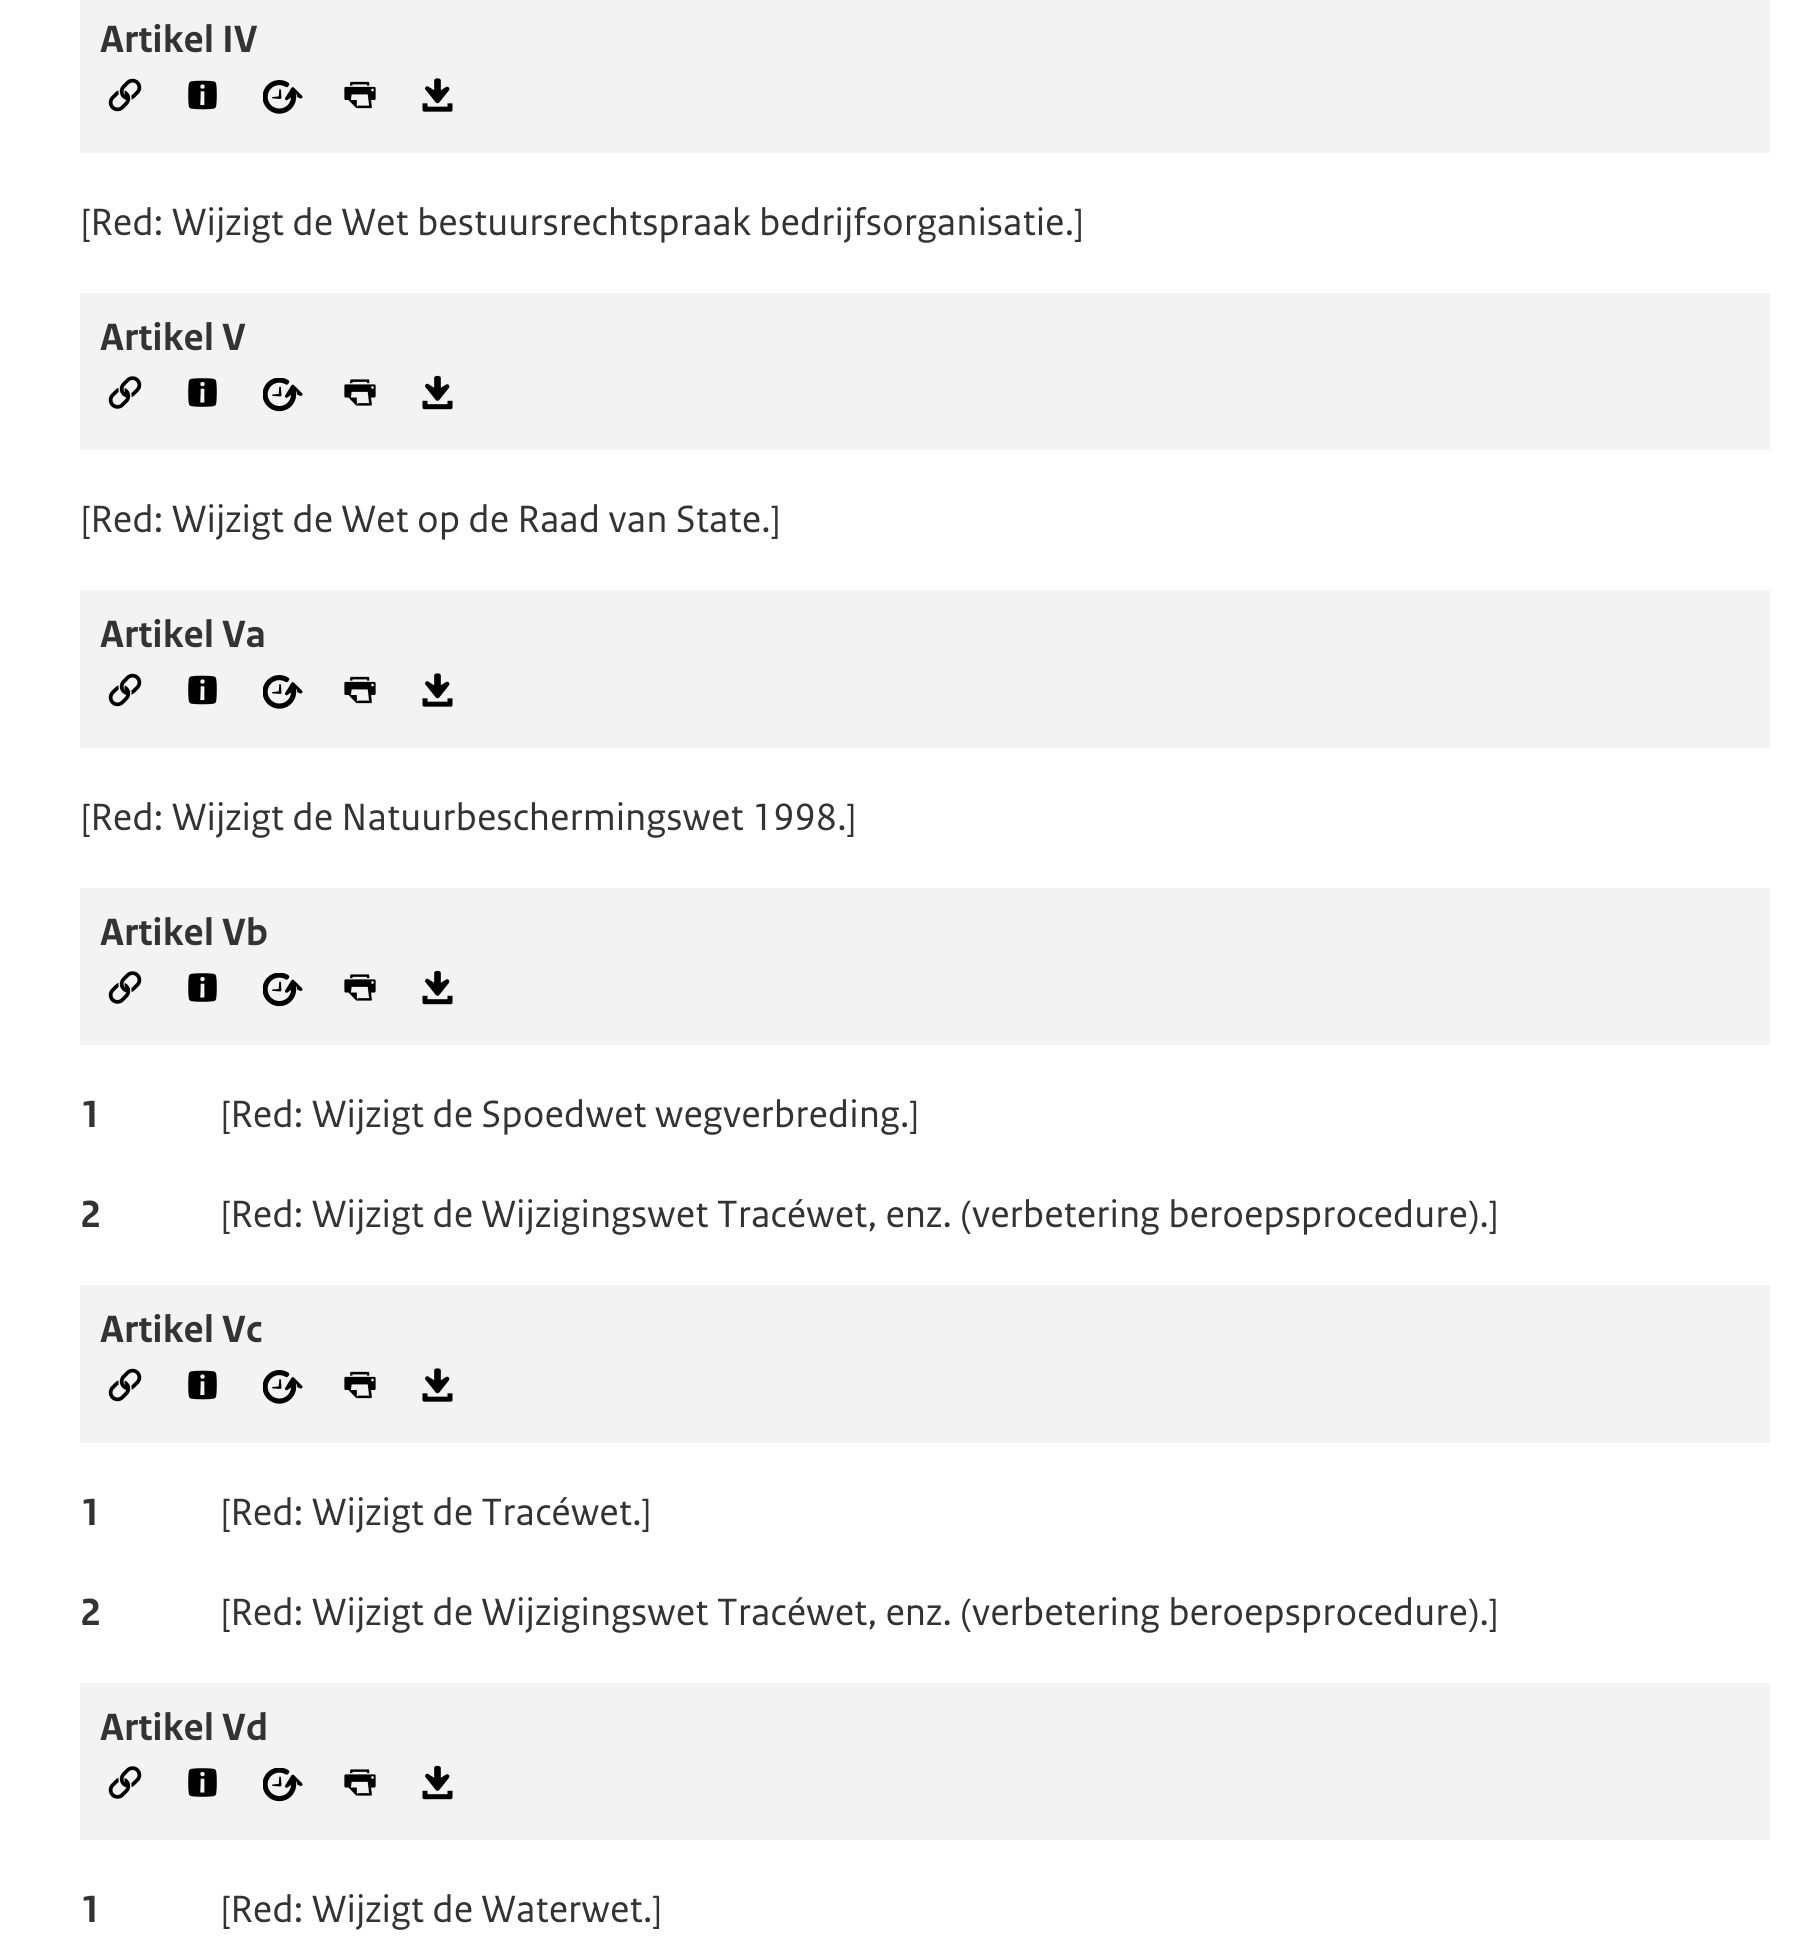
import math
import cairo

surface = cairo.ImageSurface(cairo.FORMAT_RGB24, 1808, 1955)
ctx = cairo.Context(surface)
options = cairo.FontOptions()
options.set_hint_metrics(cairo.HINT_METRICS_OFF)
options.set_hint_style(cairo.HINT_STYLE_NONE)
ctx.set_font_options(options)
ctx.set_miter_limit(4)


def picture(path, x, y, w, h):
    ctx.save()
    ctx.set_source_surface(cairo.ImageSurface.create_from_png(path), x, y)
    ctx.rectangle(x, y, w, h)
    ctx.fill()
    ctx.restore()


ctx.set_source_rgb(1, 1, 1)
ctx.paint()
ctx.set_source_rgb(0.953, 0.953, 0.953)
ctx.rectangle(80, 0, 1690, 153)
ctx.fill()
ctx.select_font_face("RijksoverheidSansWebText", cairo.FONT_SLANT_NORMAL, cairo.FONT_WEIGHT_BOLD)
ctx.set_font_size(40)
ctx.set_source_rgb(0.2, 0.2, 0.2)
ctx.move_to(100, 52)
ctx.show_text("Artikel IV")
picture("img1.png", 108, 78, 34, 34)
picture("img2.png", 188, 80, 29, 30)
picture("img3.png", 263, 80, 40, 34)
picture("img4.png", 344, 81, 32, 28)
picture("img5.png", 422, 78, 31, 34)
ctx.select_font_face("RijksoverheidSansWebText")
ctx.move_to(80, 235)
ctx.show_text("[Red: Wijzigt de Wet bestuursrechtspraak bedrijfsorganisatie.]")
ctx.set_source_rgb(0.953, 0.953, 0.953)
ctx.rectangle(80, 293, 1690, 157)
ctx.fill()
ctx.select_font_face("RijksoverheidSansWebText", cairo.FONT_SLANT_NORMAL, cairo.FONT_WEIGHT_BOLD)
ctx.set_source_rgb(0.2, 0.2, 0.2)
ctx.move_to(100, 350)
ctx.show_text("Artikel V")
picture("img6.png", 108, 376, 34, 33)
picture("img7.png", 188, 378, 29, 29)
picture("img8.png", 263, 378, 40, 34)
picture("img9.png", 344, 379, 32, 27)
picture("img10.png", 422, 375, 31, 35)
ctx.select_font_face("RijksoverheidSansWebText")
ctx.move_to(80, 532)
ctx.show_text("[Red: Wijzigt de Wet op de Raad van State.]")
ctx.set_source_rgb(0.953, 0.953, 0.953)
ctx.rectangle(80, 590, 1690, 158)
ctx.fill()
ctx.select_font_face("RijksoverheidSansWebText", cairo.FONT_SLANT_NORMAL, cairo.FONT_WEIGHT_BOLD)
ctx.set_source_rgb(0.2, 0.2, 0.2)
ctx.move_to(100, 647)
ctx.show_text("Artikel Va")
picture("img1.png", 108, 673, 34, 34)
picture("img2.png", 188, 675, 29, 30)
picture("img3.png", 263, 675, 40, 34)
picture("img4.png", 344, 676, 32, 28)
picture("img5.png", 422, 673, 31, 34)
ctx.select_font_face("RijksoverheidSansWebText")
ctx.move_to(80, 830)
ctx.show_text("[Red: Wijzigt de Natuurbeschermingswet 1998.]")
ctx.set_source_rgb(0.953, 0.953, 0.953)
ctx.rectangle(80, 888, 1690, 157)
ctx.fill()
ctx.select_font_face("RijksoverheidSansWebText", cairo.FONT_SLANT_NORMAL, cairo.FONT_WEIGHT_BOLD)
ctx.set_source_rgb(0.2, 0.2, 0.2)
ctx.move_to(100, 945)
ctx.show_text("Artikel Vb")
picture("img6.png", 108, 971, 34, 33)
picture("img7.png", 188, 973, 29, 29)
picture("img8.png", 263, 973, 40, 34)
picture("img9.png", 344, 974, 32, 27)
picture("img10.png", 422, 970, 31, 35)
ctx.move_to(80, 1127)
ctx.show_text("1")
ctx.select_font_face("RijksoverheidSansWebText")
ctx.move_to(220, 1127)
ctx.show_text("[Red: Wijzigt de Spoedwet wegverbreding.]")
ctx.select_font_face("RijksoverheidSansWebText", cairo.FONT_SLANT_NORMAL, cairo.FONT_WEIGHT_BOLD)
ctx.move_to(80, 1227)
ctx.show_text("2")
ctx.select_font_face("RijksoverheidSansWebText")
ctx.move_to(220, 1227)
ctx.show_text("[Red: Wijzigt de Wijzigingswet Tracéwet, enz. (verbetering beroepsprocedure).]")
ctx.set_source_rgb(0.953, 0.953, 0.953)
ctx.rectangle(80, 1285, 1690, 158)
ctx.fill()
ctx.select_font_face("RijksoverheidSansWebText", cairo.FONT_SLANT_NORMAL, cairo.FONT_WEIGHT_BOLD)
ctx.set_source_rgb(0.2, 0.2, 0.2)
ctx.move_to(100, 1342)
ctx.show_text("Artikel Vc")
picture("img1.png", 108, 1368, 34, 34)
picture("img2.png", 188, 1370, 29, 30)
picture("img3.png", 263, 1370, 40, 34)
picture("img4.png", 344, 1371, 32, 28)
picture("img5.png", 422, 1368, 31, 34)
ctx.move_to(80, 1525)
ctx.show_text("1")
ctx.select_font_face("RijksoverheidSansWebText")
ctx.move_to(220, 1525)
ctx.show_text("[Red: Wijzigt de Tracéwet.]")
ctx.select_font_face("RijksoverheidSansWebText", cairo.FONT_SLANT_NORMAL, cairo.FONT_WEIGHT_BOLD)
ctx.move_to(80, 1625)
ctx.show_text("2")
ctx.select_font_face("RijksoverheidSansWebText")
ctx.move_to(220, 1625)
ctx.show_text("[Red: Wijzigt de Wijzigingswet Tracéwet, enz. (verbetering beroepsprocedure).]")
ctx.set_source_rgb(0.953, 0.953, 0.953)
ctx.rectangle(80, 1683, 1690, 157)
ctx.fill()
ctx.select_font_face("RijksoverheidSansWebText", cairo.FONT_SLANT_NORMAL, cairo.FONT_WEIGHT_BOLD)
ctx.set_source_rgb(0.2, 0.2, 0.2)
ctx.move_to(100, 1740)
ctx.show_text("Artikel Vd")
picture("img6.png", 108, 1766, 34, 33)
picture("img7.png", 188, 1768, 29, 29)
picture("img8.png", 263, 1768, 40, 34)
picture("img9.png", 344, 1769, 32, 27)
picture("img10.png", 422, 1765, 31, 35)
ctx.move_to(80, 1922)
ctx.show_text("1")
ctx.select_font_face("RijksoverheidSansWebText")
ctx.move_to(220, 1922)
ctx.show_text("[Red: Wijzigt de Waterwet.]")
surface.write_to_png("page.png")
